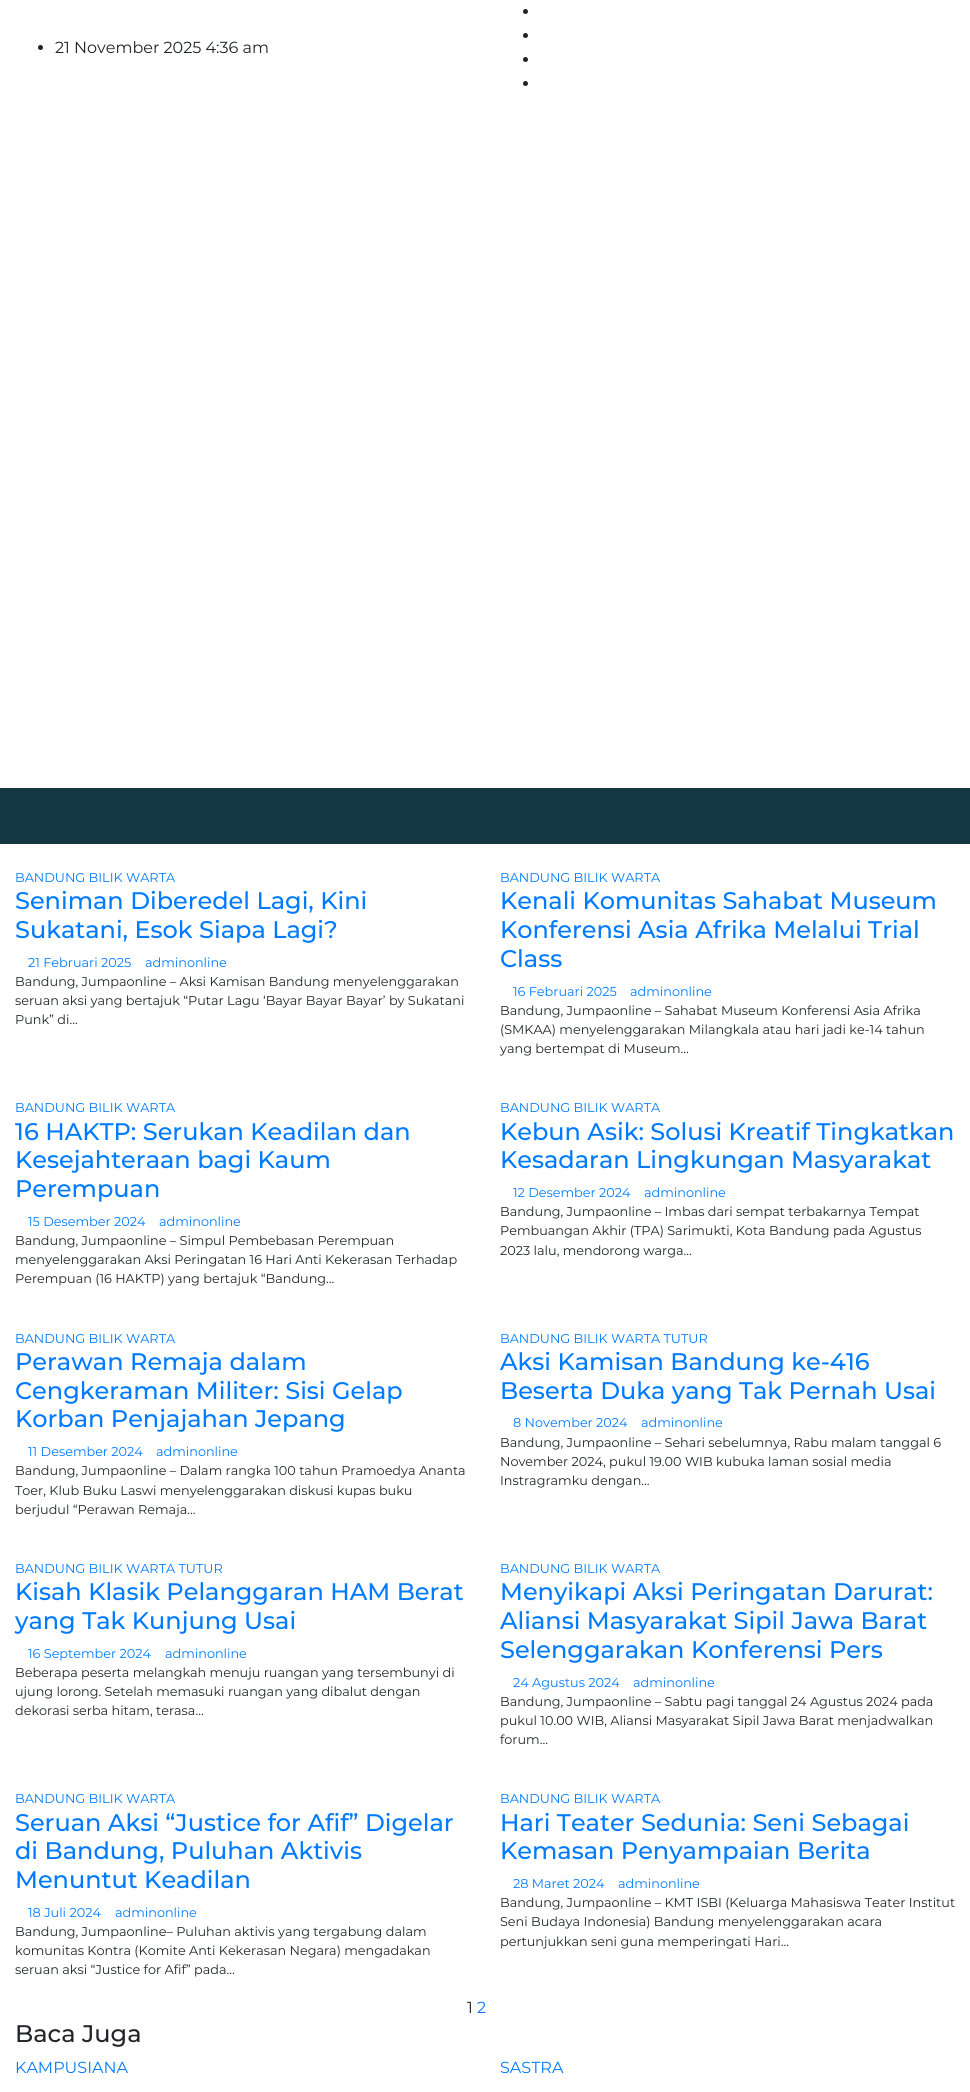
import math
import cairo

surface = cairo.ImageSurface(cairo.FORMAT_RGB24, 970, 2092)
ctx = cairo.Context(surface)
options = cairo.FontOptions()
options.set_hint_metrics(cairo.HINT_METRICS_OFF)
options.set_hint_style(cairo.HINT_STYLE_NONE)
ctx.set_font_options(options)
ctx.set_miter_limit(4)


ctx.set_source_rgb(1, 1, 1)
ctx.paint()
ctx.set_source_rgb(0.129, 0.145, 0.161)
ctx.arc(40.5, 47.5, 2.5, 0, 2 * math.pi)
ctx.fill()
ctx.select_font_face("Montserrat")
ctx.set_font_size(16)
ctx.move_to(55, 53)
ctx.show_text("21 November 2025 4:36 am")
ctx.new_path()
ctx.arc(525.5, 11.5, 2.5, 0, 2 * math.pi)
ctx.fill()
ctx.arc(525.5, 35.5, 2.5, 0, 2 * math.pi)
ctx.fill()
ctx.arc(525.5, 59.5, 2.5, 0, 2 * math.pi)
ctx.fill()
ctx.arc(525.5, 83.5, 2.5, 0, 2 * math.pi)
ctx.fill()
ctx.set_source_rgb(0.078, 0.216, 0.271)
ctx.rectangle(0, 788, 970, 56)
ctx.fill()
ctx.set_font_size(12.8)
ctx.set_source_rgb(0, 0.482, 1)
ctx.move_to(15, 882)
ctx.show_text("BANDUNG BILIK WARTA")
ctx.select_font_face("Montserrat Medium")
ctx.set_font_size(24)
ctx.move_to(15, 909)
ctx.show_text("Seniman Diberedel Lagi, Kini")
ctx.move_to(15, 938)
ctx.show_text("Sukatani, Esok Siapa Lagi?")
ctx.select_font_face("Montserrat")
ctx.set_font_size(12.8)
ctx.move_to(28, 967)
ctx.show_text("21 Februari 2025")
ctx.move_to(145, 967)
ctx.show_text("adminonline")
ctx.set_source_rgb(0.129, 0.145, 0.161)
ctx.move_to(15, 986)
ctx.show_text("Bandung, Jumpaonline – Aksi Kamisan Bandung menyelenggarakan")
ctx.move_to(15, 1005)
ctx.show_text("seruan aksi yang bertajuk “Putar Lagu ‘Bayar Bayar Bayar’ by Sukatani")
ctx.move_to(15, 1024)
ctx.show_text("Punk” di…")
ctx.set_source_rgb(0, 0.482, 1)
ctx.move_to(500, 882)
ctx.show_text("BANDUNG BILIK WARTA")
ctx.select_font_face("Montserrat Medium")
ctx.set_font_size(24)
ctx.move_to(500, 909)
ctx.show_text("Kenali Komunitas Sahabat Museum")
ctx.move_to(500, 938)
ctx.show_text("Konferensi Asia Afrika Melalui Trial")
ctx.move_to(500, 967)
ctx.show_text("Class")
ctx.select_font_face("Montserrat")
ctx.set_font_size(12.8)
ctx.move_to(513, 996)
ctx.show_text("16 Februari 2025")
ctx.move_to(630, 996)
ctx.show_text("adminonline")
ctx.set_source_rgb(0.129, 0.145, 0.161)
ctx.move_to(500, 1015)
ctx.show_text("Bandung, Jumpaonline – Sahabat Museum Konferensi Asia Afrika")
ctx.move_to(500, 1034)
ctx.show_text("(SMKAA) menyelenggarakan Milangkala atau hari jadi ke-14 tahun")
ctx.move_to(500, 1053)
ctx.show_text("yang bertempat di Museum…")
ctx.set_source_rgb(0, 0.482, 1)
ctx.move_to(15, 1112)
ctx.show_text("BANDUNG BILIK WARTA")
ctx.select_font_face("Montserrat Medium")
ctx.set_font_size(24)
ctx.move_to(15, 1140)
ctx.show_text("16 HAKTP: Serukan Keadilan dan")
ctx.move_to(15, 1168)
ctx.show_text("Kesejahteraan bagi Kaum")
ctx.move_to(15, 1197)
ctx.show_text("Perempuan")
ctx.select_font_face("Montserrat")
ctx.set_font_size(12.8)
ctx.move_to(28, 1226)
ctx.show_text("15 Desember 2024")
ctx.move_to(159, 1226)
ctx.show_text("adminonline")
ctx.set_source_rgb(0.129, 0.145, 0.161)
ctx.move_to(15, 1245)
ctx.show_text("Bandung, Jumpaonline – Simpul Pembebasan Perempuan")
ctx.move_to(15, 1264)
ctx.show_text("menyelenggarakan Aksi Peringatan 16 Hari Anti Kekerasan Terhadap")
ctx.move_to(15, 1283)
ctx.show_text("Perempuan (16 HAKTP) yang bertajuk “Bandung…")
ctx.set_source_rgb(0, 0.482, 1)
ctx.move_to(500, 1112)
ctx.show_text("BANDUNG BILIK WARTA")
ctx.select_font_face("Montserrat Medium")
ctx.set_font_size(24)
ctx.move_to(500, 1140)
ctx.show_text("Kebun Asik: Solusi Kreatif Tingkatkan")
ctx.move_to(500, 1168)
ctx.show_text("Kesadaran Lingkungan Masyarakat")
ctx.select_font_face("Montserrat")
ctx.set_font_size(12.8)
ctx.move_to(513, 1197)
ctx.show_text("12 Desember 2024")
ctx.move_to(644, 1197)
ctx.show_text("adminonline")
ctx.set_source_rgb(0.129, 0.145, 0.161)
ctx.move_to(500, 1216)
ctx.show_text("Bandung, Jumpaonline – Imbas dari sempat terbakarnya Tempat")
ctx.move_to(500, 1235)
ctx.show_text("Pembuangan Akhir (TPA) Sarimukti, Kota Bandung pada Agustus")
ctx.move_to(500, 1255)
ctx.show_text("2023 lalu, mendorong warga…")
ctx.set_source_rgb(0, 0.482, 1)
ctx.move_to(15, 1343)
ctx.show_text("BANDUNG BILIK WARTA")
ctx.select_font_face("Montserrat Medium")
ctx.set_font_size(24)
ctx.move_to(15, 1370)
ctx.show_text("Perawan Remaja dalam")
ctx.move_to(15, 1399)
ctx.show_text("Cengkeraman Militer: Sisi Gelap")
ctx.move_to(15, 1427)
ctx.show_text("Korban Penjajahan Jepang")
ctx.select_font_face("Montserrat")
ctx.set_font_size(12.8)
ctx.move_to(28, 1456)
ctx.show_text("11 Desember 2024")
ctx.move_to(156, 1456)
ctx.show_text("adminonline")
ctx.set_source_rgb(0.129, 0.145, 0.161)
ctx.move_to(15, 1475)
ctx.show_text("Bandung, Jumpaonline – Dalam rangka 100 tahun Pramoedya Ananta")
ctx.move_to(15, 1495)
ctx.show_text("Toer, Klub Buku Laswi menyelenggarakan diskusi kupas buku")
ctx.move_to(15, 1514)
ctx.show_text("berjudul “Perawan Remaja…")
ctx.set_source_rgb(0, 0.482, 1)
ctx.move_to(500, 1343)
ctx.show_text("BANDUNG BILIK WARTA TUTUR")
ctx.select_font_face("Montserrat Medium")
ctx.set_font_size(24)
ctx.move_to(500, 1370)
ctx.show_text("Aksi Kamisan Bandung ke-416")
ctx.move_to(500, 1399)
ctx.show_text("Beserta Duka yang Tak Pernah Usai")
ctx.select_font_face("Montserrat")
ctx.set_font_size(12.8)
ctx.move_to(513, 1427)
ctx.show_text("8 November 2024")
ctx.move_to(641, 1427)
ctx.show_text("adminonline")
ctx.set_source_rgb(0.129, 0.145, 0.161)
ctx.move_to(500, 1447)
ctx.show_text("Bandung, Jumpaonline – Sehari sebelumnya, Rabu malam tanggal 6")
ctx.move_to(500, 1466)
ctx.show_text("November 2024, pukul 19.00 WIB kubuka laman sosial media")
ctx.move_to(500, 1485)
ctx.show_text("Instragramku dengan…")
ctx.set_source_rgb(0, 0.482, 1)
ctx.move_to(15, 1573)
ctx.show_text("BANDUNG BILIK WARTA TUTUR")
ctx.select_font_face("Montserrat Medium")
ctx.set_font_size(24)
ctx.move_to(15, 1600)
ctx.show_text("Kisah Klasik Pelanggaran HAM Berat")
ctx.move_to(15, 1629)
ctx.show_text("yang Tak Kunjung Usai")
ctx.select_font_face("Montserrat")
ctx.set_font_size(12.8)
ctx.move_to(28, 1658)
ctx.show_text("16 September 2024")
ctx.move_to(165, 1658)
ctx.show_text("adminonline")
ctx.set_source_rgb(0.129, 0.145, 0.161)
ctx.move_to(15, 1677)
ctx.show_text("Beberapa peserta melangkah menuju ruangan yang tersembunyi di")
ctx.move_to(15, 1696)
ctx.show_text("ujung lorong. Setelah memasuki ruangan yang dibalut dengan")
ctx.move_to(15, 1715)
ctx.show_text("dekorasi serba hitam, terasa…")
ctx.set_source_rgb(0, 0.482, 1)
ctx.move_to(500, 1573)
ctx.show_text("BANDUNG BILIK WARTA")
ctx.select_font_face("Montserrat Medium")
ctx.set_font_size(24)
ctx.move_to(500, 1600)
ctx.show_text("Menyikapi Aksi Peringatan Darurat:")
ctx.move_to(500, 1629)
ctx.show_text("Aliansi Masyarakat Sipil Jawa Barat")
ctx.move_to(500, 1658)
ctx.show_text("Selenggarakan Konferensi Pers")
ctx.select_font_face("Montserrat")
ctx.set_font_size(12.8)
ctx.move_to(513, 1687)
ctx.show_text("24 Agustus 2024")
ctx.move_to(633, 1687)
ctx.show_text("adminonline")
ctx.set_source_rgb(0.129, 0.145, 0.161)
ctx.move_to(500, 1706)
ctx.show_text("Bandung, Jumpaonline – Sabtu pagi tanggal 24 Agustus 2024 pada")
ctx.move_to(500, 1725)
ctx.show_text("pukul 10.00 WIB, Aliansi Masyarakat Sipil Jawa Barat menjadwalkan")
ctx.move_to(500, 1744)
ctx.show_text("forum…")
ctx.set_source_rgb(0, 0.482, 1)
ctx.move_to(15, 1803)
ctx.show_text("BANDUNG BILIK WARTA")
ctx.select_font_face("Montserrat Medium")
ctx.set_font_size(24)
ctx.move_to(15, 1831)
ctx.show_text("Seruan Aksi “Justice for Afif” Digelar")
ctx.move_to(15, 1859)
ctx.show_text("di Bandung, Puluhan Aktivis")
ctx.move_to(15, 1888)
ctx.show_text("Menuntut Keadilan")
ctx.select_font_face("Montserrat")
ctx.set_font_size(12.8)
ctx.move_to(28, 1917)
ctx.show_text("18 Juli 2024")
ctx.move_to(115, 1917)
ctx.show_text("adminonline")
ctx.set_source_rgb(0.129, 0.145, 0.161)
ctx.move_to(15, 1936)
ctx.show_text("Bandung, Jumpaonline– Puluhan aktivis yang tergabung dalam")
ctx.move_to(15, 1955)
ctx.show_text("komunitas Kontra (Komite Anti Kekerasan Negara) mengadakan")
ctx.move_to(15, 1974)
ctx.show_text("seruan aksi “Justice for Afif” pada…")
ctx.set_source_rgb(0, 0.482, 1)
ctx.move_to(500, 1803)
ctx.show_text("BANDUNG BILIK WARTA")
ctx.select_font_face("Montserrat Medium")
ctx.set_font_size(24)
ctx.move_to(500, 1831)
ctx.show_text("Hari Teater Sedunia: Seni Sebagai")
ctx.move_to(500, 1859)
ctx.show_text("Kemasan Penyampaian Berita")
ctx.select_font_face("Montserrat")
ctx.set_font_size(12.8)
ctx.move_to(513, 1888)
ctx.show_text("28 Maret 2024")
ctx.move_to(618, 1888)
ctx.show_text("adminonline")
ctx.set_source_rgb(0.129, 0.145, 0.161)
ctx.move_to(500, 1907)
ctx.show_text("Bandung, Jumpaonline – KMT ISBI (Keluarga Mahasiswa Teater Institut")
ctx.move_to(500, 1926)
ctx.show_text("Seni Budaya Indonesia) Bandung menyelenggarakan acara")
ctx.move_to(500, 1946)
ctx.show_text("pertunjukkan seni guna memperingati Hari…")
ctx.set_font_size(16)
ctx.move_to(467, 2013)
ctx.show_text("1")
ctx.set_source_rgb(0, 0.482, 1)
ctx.move_to(477, 2013)
ctx.show_text("2")
ctx.select_font_face("Montserrat Medium")
ctx.set_font_size(24)
ctx.set_source_rgb(0.129, 0.145, 0.161)
ctx.move_to(15, 2042)
ctx.show_text("Baca Juga")
ctx.select_font_face("Montserrat")
ctx.set_font_size(16)
ctx.set_source_rgb(0, 0.482, 1)
ctx.move_to(15, 2073)
ctx.show_text("KAMPUSIANA")
ctx.move_to(500, 2073)
ctx.show_text("SASTRA")
surface.write_to_png("page.png")
